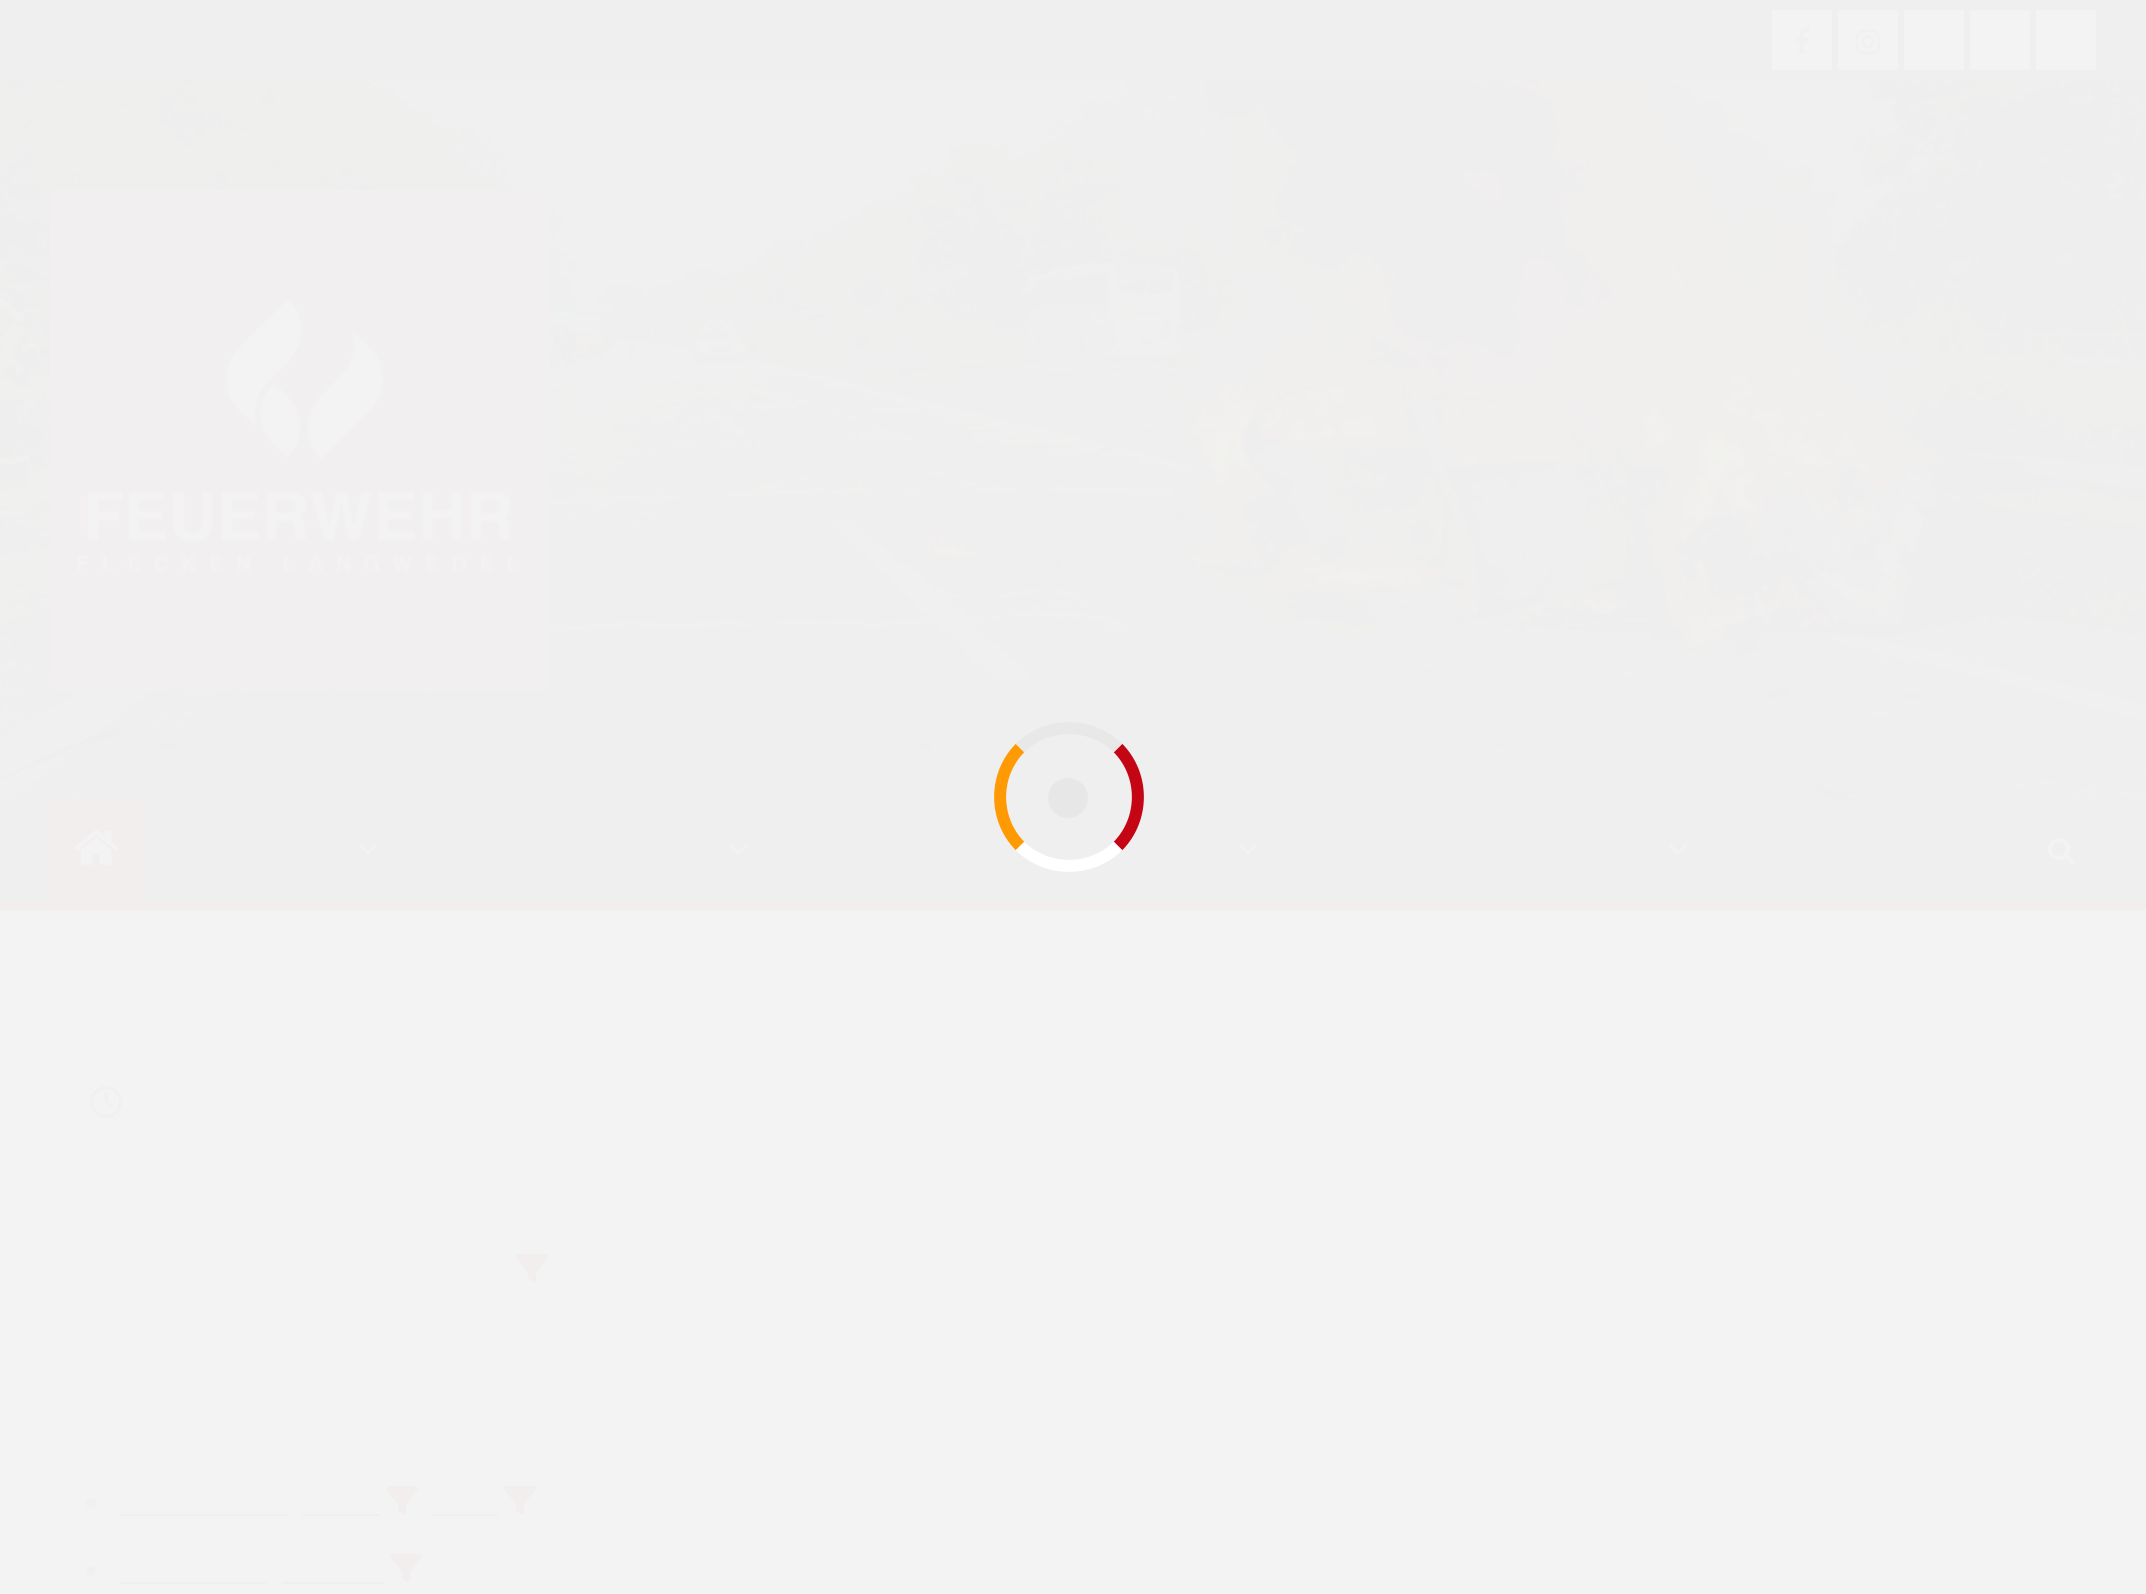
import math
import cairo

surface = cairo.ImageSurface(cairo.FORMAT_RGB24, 2146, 1594)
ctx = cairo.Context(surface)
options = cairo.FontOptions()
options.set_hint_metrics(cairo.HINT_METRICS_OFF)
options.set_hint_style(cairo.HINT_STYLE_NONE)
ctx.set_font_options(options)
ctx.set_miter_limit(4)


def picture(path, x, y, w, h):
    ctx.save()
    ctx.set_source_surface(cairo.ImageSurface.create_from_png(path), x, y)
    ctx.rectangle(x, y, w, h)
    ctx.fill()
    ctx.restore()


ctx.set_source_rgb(0.953, 0.953, 0.953)
ctx.paint()
ctx.set_source_rgb(0.937, 0.937, 0.937)
ctx.rectangle(0, 0, 2146, 80)
ctx.fill()
ctx.set_source_rgb(0.953, 0.953, 0.953)
ctx.rectangle(1772, 10, 60, 60)
ctx.fill()
picture("img1.png", 1795, 28, 14, 26)
ctx.rectangle(1838, 10, 60, 60)
ctx.fill()
picture("img2.png", 1856, 30, 24, 24)
ctx.rectangle(1904, 10, 60, 60)
ctx.fill()
ctx.rectangle(1970, 10, 60, 60)
ctx.fill()
ctx.rectangle(2036, 10, 60, 60)
ctx.fill()
picture("img3.png", 0, 80, 2146, 720)
picture("img4.png", 50, 190, 500, 500)
ctx.set_source_rgb(0.937, 0.937, 0.937)
ctx.rectangle(0, 800, 2146, 102)
ctx.fill()
ctx.set_source_rgb(0.949, 0.933, 0.933)
ctx.rectangle(0, 902, 2146, 8)
ctx.fill()
ctx.rectangle(50, 800, 92, 102)
ctx.fill()
picture("img5.png", 74, 830, 44, 35)
picture("img6.png", 359, 844, 19, 11)
picture("img6.png", 729, 844, 19, 11)
picture("img6.png", 1239, 844, 19, 11)
picture("img6.png", 1669, 844, 19, 11)
picture("img7.png", 2048, 838, 26, 26)
picture("img8.png", 90, 1086, 32, 32)
picture("img9.png", 516, 1254, 32, 28)
ctx.set_source_rgb(0.941, 0.941, 0.941)
ctx.arc(91, 1503, 5, 0, 2 * math.pi)
ctx.fill()
picture("img9.png", 386, 1486, 32, 28)
picture("img9.png", 504, 1486, 32, 28)
ctx.set_source_rgb(0.949, 0.933, 0.933)
ctx.rectangle(120, 1514, 168, 2)
ctx.fill()
ctx.rectangle(302, 1514, 78, 2)
ctx.fill()
ctx.rectangle(432, 1514, 66, 2)
ctx.fill()
ctx.set_source_rgb(0.941, 0.941, 0.941)
ctx.arc(91, 1571, 5, 0, 2 * math.pi)
ctx.fill()
picture("img9.png", 390, 1554, 32, 28)
ctx.set_source_rgb(0.949, 0.933, 0.933)
ctx.rectangle(120, 1582, 146, 2)
ctx.fill()
ctx.rectangle(282, 1582, 102, 2)
ctx.fill()
ctx.new_path()
ctx.move_to(1118, 748)
ctx.curve_to(1144.5, 775, 1144.5, 819, 1118, 846)
ctx.set_source_rgba(0.765, 0, 0.063, 0.98)
ctx.set_line_width(12)
ctx.stroke()
ctx.new_path()
ctx.move_to(1020, 846)
ctx.curve_to(993.5, 819, 993.5, 775, 1020, 748)
ctx.set_source_rgba(1, 0.596, 0, 0.98)
ctx.stroke()
ctx.new_path()
ctx.move_to(1020, 748)
ctx.curve_to(1047, 721.5, 1091, 721.5, 1118, 748)
ctx.set_source_rgba(0.906, 0.906, 0.906, 0.98)
ctx.stroke()
ctx.new_path()
ctx.move_to(1118, 846)
ctx.curve_to(1091, 872.5, 1047, 872.5, 1020, 846)
ctx.set_source_rgba(1, 1, 1, 0.98)
ctx.stroke()
ctx.set_source_rgb(0.906, 0.906, 0.906)
ctx.arc(1068, 798, 20, 0, 2 * math.pi)
ctx.fill()
surface.write_to_png("page.png")
